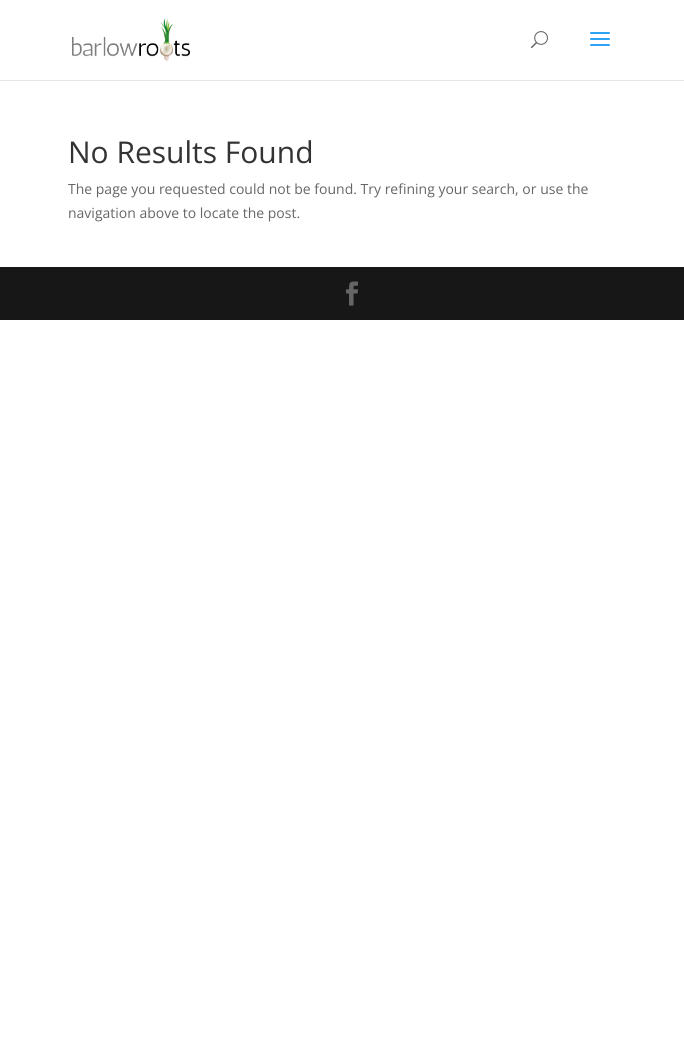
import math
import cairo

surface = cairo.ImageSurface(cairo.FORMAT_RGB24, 684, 1037)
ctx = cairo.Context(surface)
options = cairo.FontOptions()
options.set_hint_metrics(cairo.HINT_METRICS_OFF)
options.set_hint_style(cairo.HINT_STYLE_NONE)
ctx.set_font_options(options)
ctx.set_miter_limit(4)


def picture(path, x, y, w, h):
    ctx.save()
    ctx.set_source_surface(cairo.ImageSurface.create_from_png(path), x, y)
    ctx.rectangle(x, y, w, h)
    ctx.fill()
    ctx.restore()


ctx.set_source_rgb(1, 1, 1)
ctx.paint()
ctx.set_source_rgb(0.902, 0.902, 0.902)
ctx.rectangle(0, 80, 684, 1)
ctx.fill()
picture("img1.png", 72, 18, 118, 44)
picture("img2.png", 531, 31, 17, 18)
picture("img3.png", 590, 32, 20, 14)
ctx.select_font_face("Open Sans")
ctx.set_font_size(30)
ctx.set_source_rgb(0.2, 0.2, 0.2)
ctx.move_to(68, 163)
ctx.show_text("No Results Found")
ctx.set_font_size(14)
ctx.set_source_rgb(0.4, 0.4, 0.4)
ctx.move_to(68, 194)
ctx.show_text("The page you requested could not be found. Try refining your search, or use the")
ctx.move_to(68, 218)
ctx.show_text("navigation above to locate the post.")
ctx.set_source_rgb(0.09, 0.09, 0.09)
ctx.rectangle(0, 267, 684, 53)
ctx.fill()
picture("img4.png", 346, 281, 12, 25)
surface.write_to_png("page.png")
